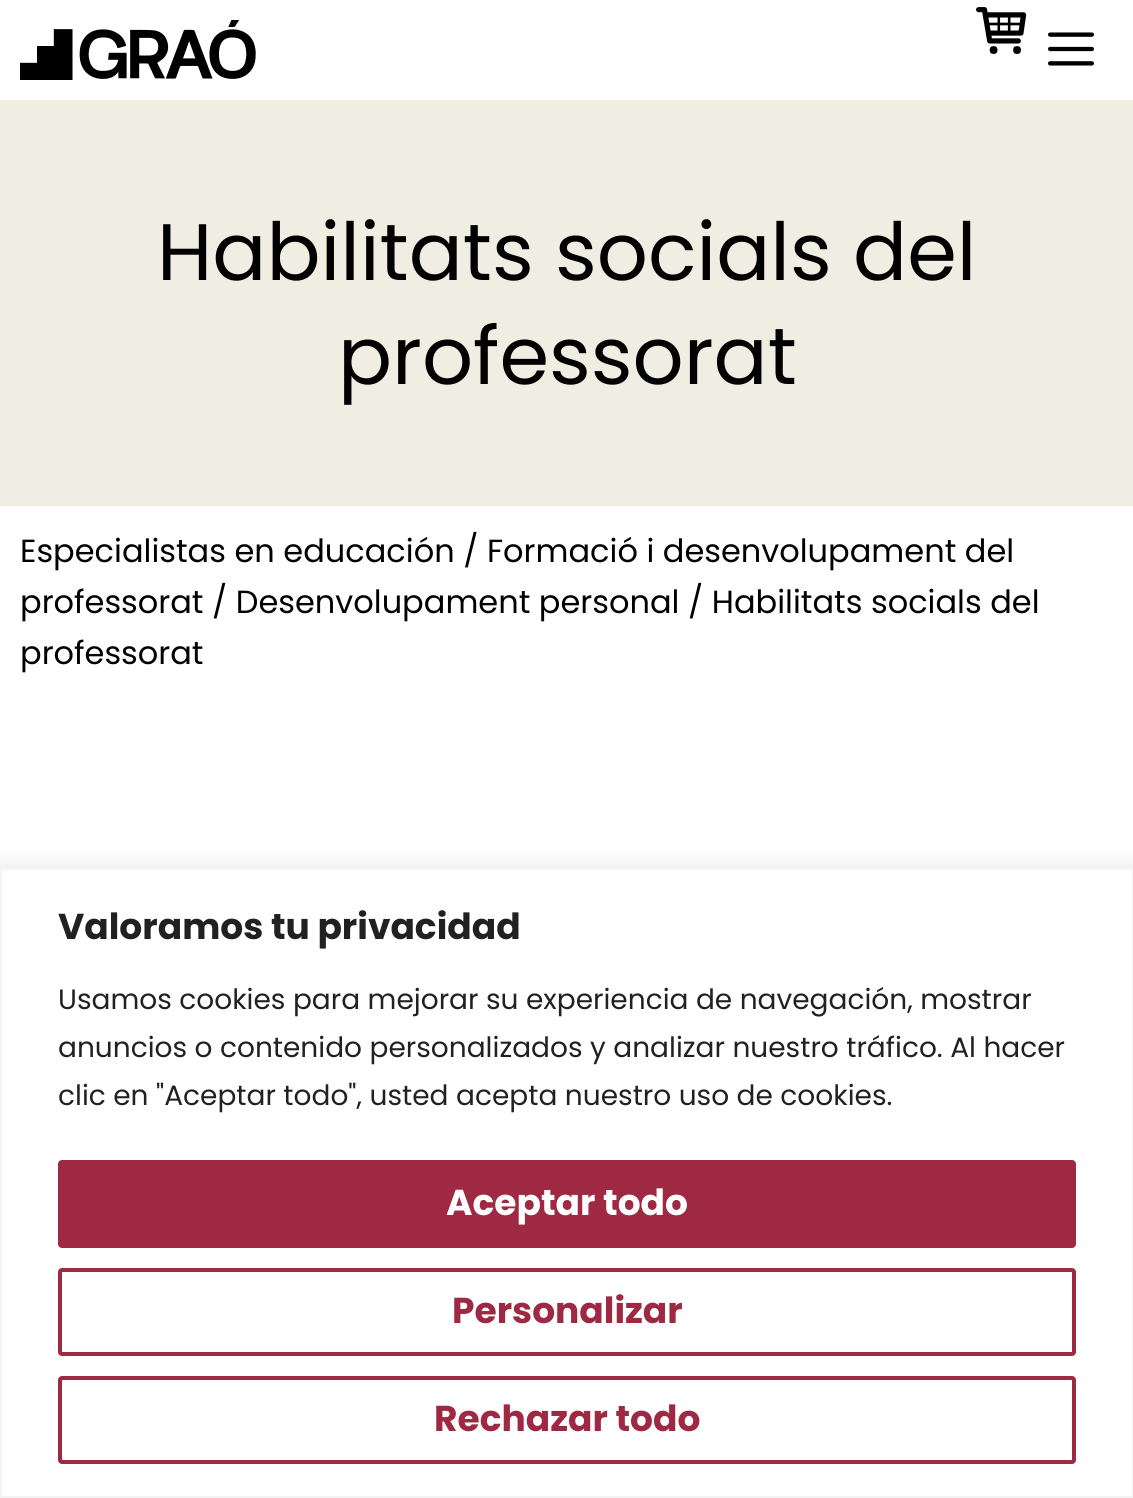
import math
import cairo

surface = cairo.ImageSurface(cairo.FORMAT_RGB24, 1133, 1498)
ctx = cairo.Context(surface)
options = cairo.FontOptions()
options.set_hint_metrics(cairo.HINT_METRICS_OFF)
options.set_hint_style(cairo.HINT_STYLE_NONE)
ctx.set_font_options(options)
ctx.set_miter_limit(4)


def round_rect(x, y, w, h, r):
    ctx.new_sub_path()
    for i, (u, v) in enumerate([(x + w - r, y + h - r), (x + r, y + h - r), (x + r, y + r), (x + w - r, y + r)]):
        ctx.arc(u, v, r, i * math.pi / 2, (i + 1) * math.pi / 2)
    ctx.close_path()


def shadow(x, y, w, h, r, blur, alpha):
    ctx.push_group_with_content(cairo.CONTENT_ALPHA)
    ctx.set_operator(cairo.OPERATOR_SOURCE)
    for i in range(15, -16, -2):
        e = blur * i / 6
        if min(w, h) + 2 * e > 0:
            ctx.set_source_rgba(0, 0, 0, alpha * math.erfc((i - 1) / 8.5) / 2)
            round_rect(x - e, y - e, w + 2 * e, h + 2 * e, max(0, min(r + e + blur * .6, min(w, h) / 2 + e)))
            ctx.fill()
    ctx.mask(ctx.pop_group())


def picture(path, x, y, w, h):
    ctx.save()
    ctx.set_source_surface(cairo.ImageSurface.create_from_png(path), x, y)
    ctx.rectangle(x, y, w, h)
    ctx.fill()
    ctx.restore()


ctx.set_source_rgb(1, 1, 1)
ctx.paint()
picture("img1.png", 20, 20, 236, 60)
picture("img2.png", 976, 7, 51, 47)
picture("img3.png", 1048, 32, 46, 34)
ctx.set_source_rgb(0.941, 0.929, 0.886)
ctx.rectangle(0, 100, 1133, 406)
ctx.fill()
ctx.select_font_face("Poppins")
ctx.set_font_size(80)
ctx.set_source_rgb(0, 0, 0)
ctx.move_to(157, 280)
ctx.show_text("Habilitats socials del")
ctx.move_to(338, 384)
ctx.show_text("professorat")
ctx.set_font_size(32)
ctx.move_to(20, 562)
ctx.show_text("Especialistas en educación / Formació i desenvolupament del")
ctx.move_to(20, 613)
ctx.show_text("professorat / Desenvolupament personal / Habilitats socials del")
ctx.move_to(20, 664)
ctx.show_text("professorat")
ctx.set_source_rgb(0.675, 0.671, 0.671)
shadow(0, 866, 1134, 630, 0, 10, 0.3)
ctx.set_source_rgb(1, 1, 1)
ctx.rectangle(1, 869, 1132, 628)
ctx.fill_preserve()
ctx.set_source_rgb(0.957, 0.957, 0.957)
ctx.stroke()
ctx.select_font_face("Poppins", cairo.FONT_SLANT_NORMAL, cairo.FONT_WEIGHT_BOLD)
ctx.set_font_size(36)
ctx.set_source_rgb(0.129, 0.129, 0.129)
ctx.move_to(58, 939)
ctx.show_text("Valoramos tu privacidad")
ctx.select_font_face("Poppins")
ctx.set_font_size(28)
ctx.move_to(58, 1009)
ctx.show_text("Usamos cookies para mejorar su experiencia de navegación, mostrar")
ctx.move_to(58, 1057)
ctx.show_text("anuncios o contenido personalizados y analizar nuestro tráfico. Al hacer")
ctx.move_to(58, 1105)
ctx.show_text("clic en \"Aceptar todo\", usted acepta nuestro uso de cookies.")
ctx.set_source_rgb(0.624, 0.161, 0.263)
round_rect(60, 1162, 1014, 84, 2)
ctx.fill_preserve()
ctx.set_line_width(4)
ctx.stroke()
ctx.select_font_face("Poppins", cairo.FONT_SLANT_NORMAL, cairo.FONT_WEIGHT_BOLD)
ctx.set_font_size(36)
ctx.set_source_rgb(1, 1, 1)
ctx.move_to(446, 1215)
ctx.show_text("Aceptar todo")
round_rect(60, 1270, 1014, 84, 2)
ctx.set_source_rgb(0.624, 0.161, 0.263)
ctx.stroke()
ctx.move_to(452, 1323)
ctx.show_text("Personalizar")
round_rect(60, 1378, 1014, 84, 2)
ctx.stroke()
ctx.move_to(434, 1431)
ctx.show_text("Rechazar todo")
surface.write_to_png("page.png")
